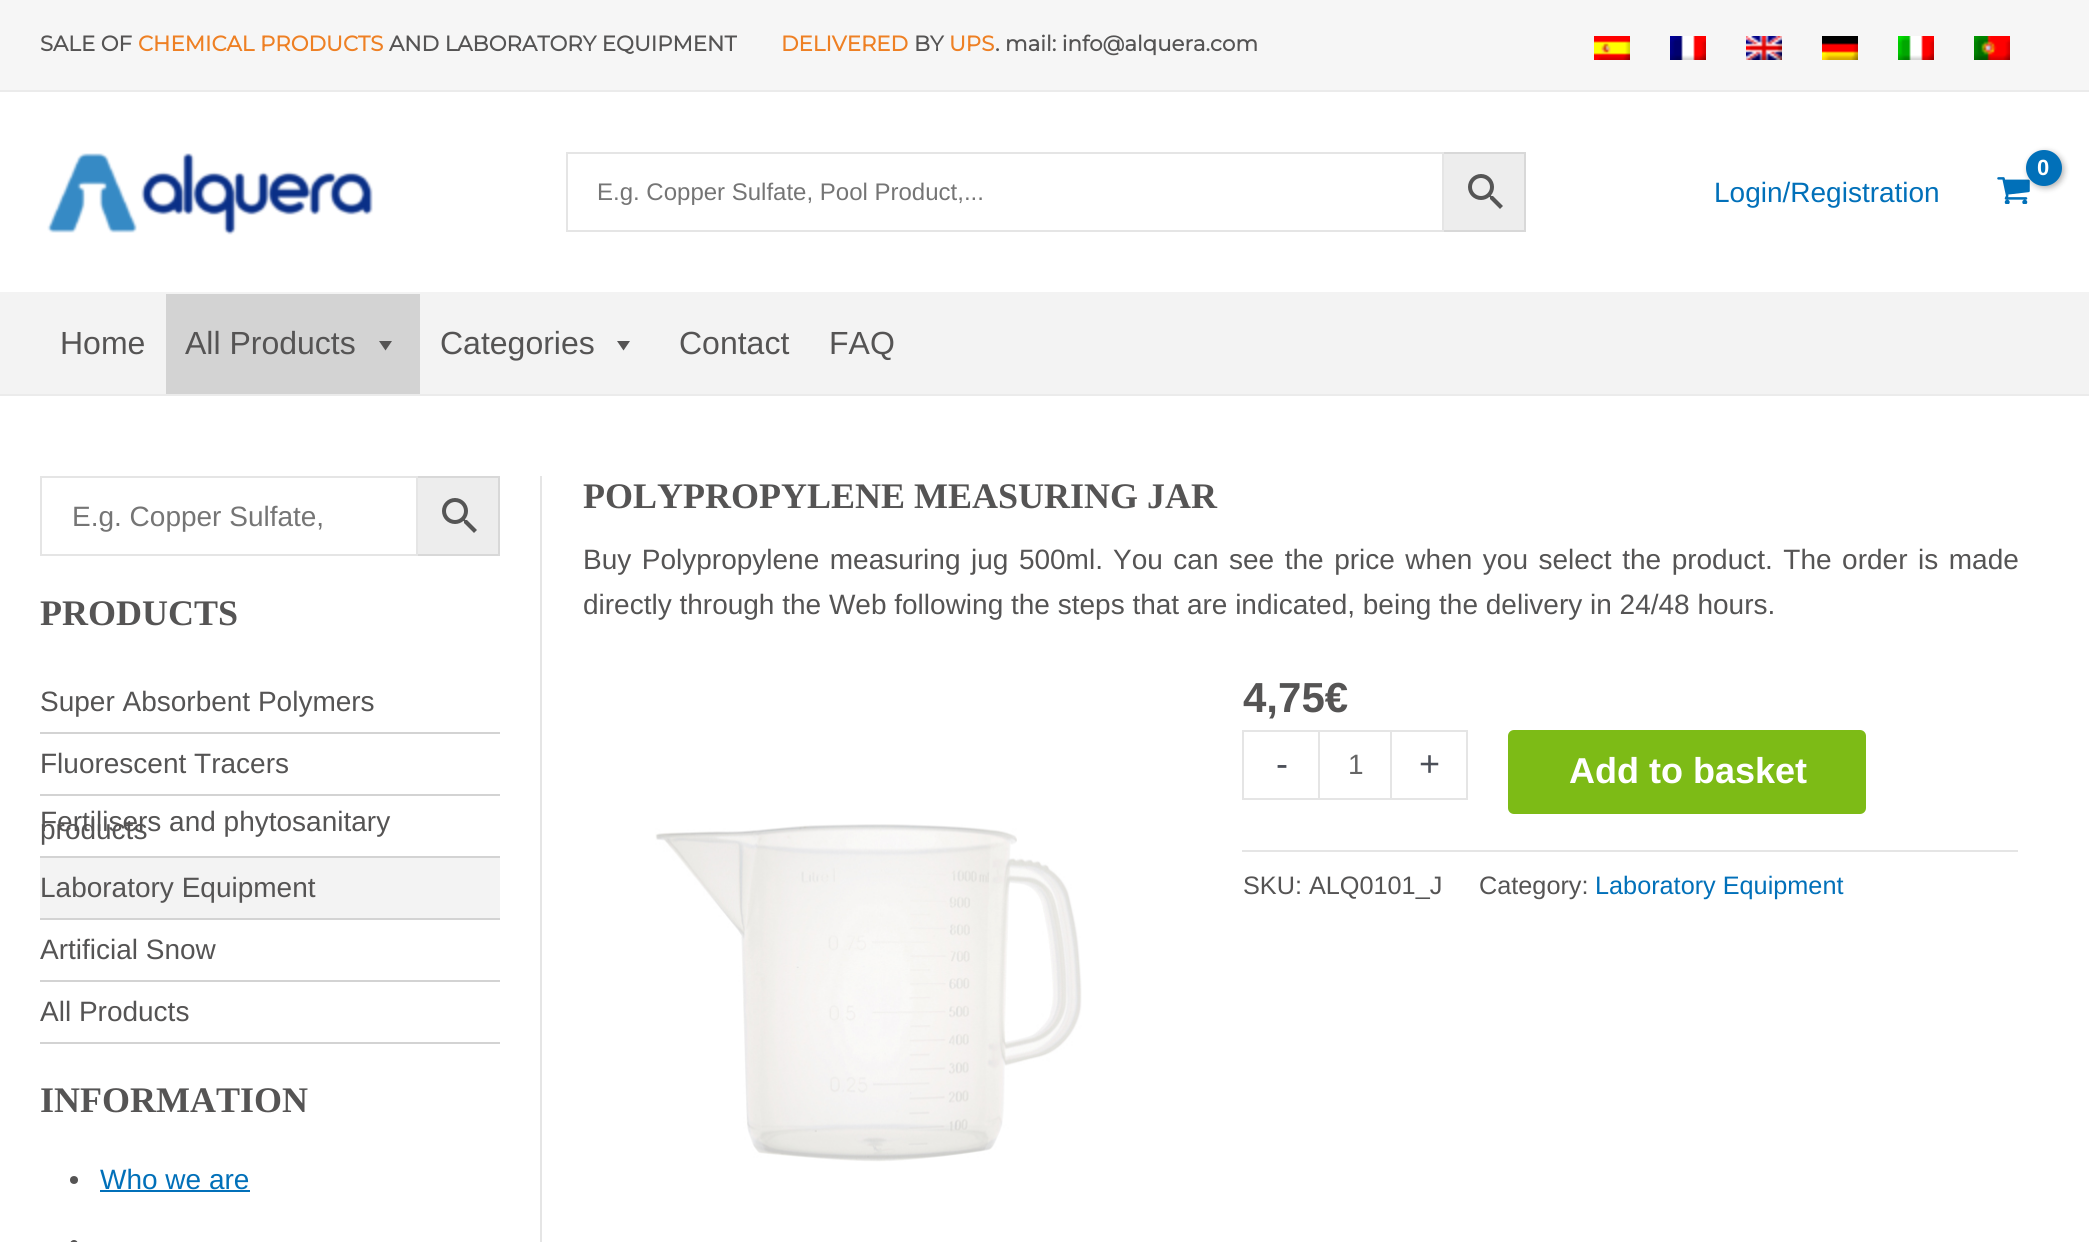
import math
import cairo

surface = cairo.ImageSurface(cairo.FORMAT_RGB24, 2089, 1242)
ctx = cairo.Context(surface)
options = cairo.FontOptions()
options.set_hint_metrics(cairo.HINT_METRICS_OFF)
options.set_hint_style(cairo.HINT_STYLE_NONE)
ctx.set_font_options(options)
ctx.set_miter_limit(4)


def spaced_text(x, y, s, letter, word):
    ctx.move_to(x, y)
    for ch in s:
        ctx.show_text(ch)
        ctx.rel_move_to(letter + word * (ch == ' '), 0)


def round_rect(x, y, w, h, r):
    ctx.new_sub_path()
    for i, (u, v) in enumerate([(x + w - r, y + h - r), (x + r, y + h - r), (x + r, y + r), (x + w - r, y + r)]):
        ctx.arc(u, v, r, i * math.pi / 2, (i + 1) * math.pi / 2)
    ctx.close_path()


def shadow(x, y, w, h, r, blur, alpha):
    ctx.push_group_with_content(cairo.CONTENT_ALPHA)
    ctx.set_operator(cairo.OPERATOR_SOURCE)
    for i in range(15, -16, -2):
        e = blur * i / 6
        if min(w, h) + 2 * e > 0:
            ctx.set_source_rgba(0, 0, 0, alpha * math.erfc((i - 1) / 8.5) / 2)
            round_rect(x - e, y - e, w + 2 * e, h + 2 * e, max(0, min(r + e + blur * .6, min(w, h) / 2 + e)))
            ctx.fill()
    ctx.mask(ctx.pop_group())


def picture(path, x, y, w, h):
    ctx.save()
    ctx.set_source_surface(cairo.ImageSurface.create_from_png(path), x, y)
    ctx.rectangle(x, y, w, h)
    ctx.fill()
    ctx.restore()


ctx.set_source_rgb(1, 1, 1)
ctx.paint()
ctx.set_source_rgb(0.961, 0.961, 0.961)
ctx.rectangle(0, 0, 2089, 90)
ctx.fill()
ctx.set_source_rgb(0.918, 0.918, 0.918)
ctx.rectangle(0, 90, 2089, 2)
ctx.fill()
ctx.select_font_face("Montserrat", cairo.FONT_SLANT_NORMAL, cairo.FONT_WEIGHT_BOLD)
ctx.set_font_size(21.3)
ctx.set_source_rgb(0.333, 0.329, 0.329)
ctx.move_to(40, 51)
ctx.show_text("SALE OF")
ctx.set_source_rgb(0.933, 0.502, 0.141)
ctx.move_to(138, 51)
ctx.show_text("CHEMICAL PRODUCTS")
ctx.set_source_rgb(0.333, 0.329, 0.329)
ctx.move_to(389, 51)
ctx.show_text("AND LABORATORY EQUIPMENT")
ctx.set_source_rgb(0.933, 0.502, 0.141)
ctx.move_to(781, 51)
ctx.show_text("DELIVERED")
ctx.set_source_rgb(0.333, 0.329, 0.329)
ctx.move_to(914, 51)
ctx.show_text("BY")
ctx.set_source_rgb(0.933, 0.502, 0.141)
ctx.move_to(949, 51)
ctx.show_text("UPS")
ctx.set_source_rgb(0.333, 0.329, 0.329)
ctx.move_to(995, 51)
ctx.show_text(". mail: info@alquera.com")
picture("img1.png", 1594, 36, 36, 24)
picture("img2.png", 1670, 36, 36, 24)
picture("img3.png", 1746, 36, 36, 24)
picture("img4.png", 1822, 36, 36, 24)
picture("img5.png", 1898, 36, 36, 24)
picture("img6.png", 1974, 36, 36, 24)
picture("img7.png", 47, 153, 326, 82)
ctx.set_source_rgb(0.929, 0.929, 0.929)
ctx.rectangle(1443, 153, 82, 78)
ctx.fill_preserve()
ctx.set_source_rgb(0.847, 0.847, 0.847)
ctx.stroke()
ctx.rectangle(567, 153, 876, 78)
ctx.set_source_rgb(0.898, 0.898, 0.898)
ctx.stroke()
ctx.select_font_face("Liberation Sans")
ctx.set_font_size(24)
ctx.set_source_rgb(0.459, 0.459, 0.459)
ctx.move_to(597, 200)
ctx.show_text("E.g. Copper Sulfate, Pool Product,...")
picture("img8.png", 1468, 174, 35, 35)
picture("img9.png", 1997, 177, 33, 27)
ctx.set_source_rgb(0, 0, 0)
shadow(2028, 152, 36, 36, 18, 3, 0.3)
ctx.set_source_rgb(0.004, 0.439, 0.725)
ctx.arc(2044, 168, 18, 0, 2 * math.pi)
ctx.fill()
ctx.select_font_face("Liberation Sans", cairo.FONT_SLANT_NORMAL, cairo.FONT_WEIGHT_BOLD)
ctx.set_font_size(22)
ctx.set_source_rgb(1, 1, 1)
spaced_text(2037, 175, "0", -1, 0)
ctx.select_font_face("Liberation Sans")
ctx.set_font_size(28)
ctx.set_source_rgb(0.004, 0.439, 0.725)
ctx.move_to(1714, 202)
ctx.show_text("Login/Registration")
ctx.set_source_rgb(0.953, 0.953, 0.953)
ctx.rectangle(0, 292, 2089, 102)
ctx.fill()
ctx.set_source_rgb(0.918, 0.918, 0.918)
ctx.rectangle(0, 394, 2089, 2)
ctx.fill()
ctx.set_font_size(32)
ctx.set_source_rgb(0.333, 0.329, 0.329)
ctx.move_to(60, 354)
ctx.show_text("Home")
ctx.set_source_rgb(0.827, 0.827, 0.827)
ctx.rectangle(166, 294, 254, 100)
ctx.fill()
ctx.set_source_rgb(0.333, 0.329, 0.329)
ctx.move_to(185, 354)
ctx.show_text("All Products")
ctx.new_path()
ctx.move_to(392, 341)
ctx.line_to(385.5, 350.5)
ctx.line_to(379, 341)
ctx.close_path()
ctx.fill()
ctx.move_to(440, 354)
ctx.show_text("Categories")
ctx.new_path()
ctx.move_to(630, 341)
ctx.line_to(623.5, 350.5)
ctx.line_to(617, 341)
ctx.close_path()
ctx.fill()
ctx.move_to(679, 354)
ctx.show_text("Contact")
ctx.move_to(829, 354)
ctx.show_text("FAQ")
ctx.set_source_rgb(0.898, 0.898, 0.898)
ctx.rectangle(540, 476, 2, 766)
ctx.fill()
ctx.set_source_rgb(0.929, 0.929, 0.929)
ctx.rectangle(417, 477, 82, 78)
ctx.fill_preserve()
ctx.set_source_rgb(0.847, 0.847, 0.847)
ctx.stroke()
ctx.rectangle(41, 477, 376, 78)
ctx.set_source_rgb(0.898, 0.898, 0.898)
ctx.stroke()
ctx.set_font_size(28)
ctx.set_source_rgb(0.459, 0.459, 0.459)
ctx.move_to(72, 526)
ctx.show_text("E.g. Copper Sulfate,")
picture("img8.png", 442, 498, 35, 35)
ctx.select_font_face("Liberation Serif", cairo.FONT_SLANT_NORMAL, cairo.FONT_WEIGHT_BOLD)
ctx.set_font_size(36)
ctx.set_source_rgb(0.333, 0.329, 0.329)
ctx.move_to(40, 625)
ctx.show_text("PRODUCTS")
ctx.set_source_rgb(0.827, 0.827, 0.827)
ctx.rectangle(40, 732, 460, 2)
ctx.fill()
ctx.select_font_face("Liberation Sans")
ctx.set_font_size(28)
ctx.set_source_rgb(0.333, 0.329, 0.329)
ctx.move_to(40, 711)
ctx.show_text("Super Absorbent Polymers")
ctx.set_source_rgb(0.827, 0.827, 0.827)
ctx.rectangle(40, 794, 460, 2)
ctx.fill()
ctx.set_source_rgb(0.333, 0.329, 0.329)
ctx.move_to(40, 773)
ctx.show_text("Fluorescent Tracers")
ctx.set_source_rgb(0.827, 0.827, 0.827)
ctx.rectangle(40, 856, 460, 2)
ctx.fill()
ctx.set_source_rgb(0.333, 0.329, 0.329)
ctx.move_to(40, 831)
ctx.show_text("Fertilisers and phytosanitary")
ctx.move_to(40, 839)
ctx.show_text("products")
ctx.set_source_rgb(0.953, 0.953, 0.953)
ctx.rectangle(40, 858, 460, 60)
ctx.fill()
ctx.set_source_rgb(0.827, 0.827, 0.827)
ctx.rectangle(40, 918, 460, 2)
ctx.fill()
ctx.set_source_rgb(0.333, 0.329, 0.329)
ctx.move_to(40, 897)
ctx.show_text("Laboratory Equipment")
ctx.set_source_rgb(0.827, 0.827, 0.827)
ctx.rectangle(40, 980, 460, 2)
ctx.fill()
ctx.set_source_rgb(0.333, 0.329, 0.329)
ctx.move_to(40, 959)
ctx.show_text("Artificial Snow")
ctx.set_source_rgb(0.827, 0.827, 0.827)
ctx.rectangle(40, 1042, 460, 2)
ctx.fill()
ctx.set_source_rgb(0.333, 0.329, 0.329)
ctx.move_to(40, 1021)
ctx.show_text("All Products")
ctx.select_font_face("Liberation Serif", cairo.FONT_SLANT_NORMAL, cairo.FONT_WEIGHT_BOLD)
ctx.set_font_size(36)
ctx.move_to(40, 1112)
ctx.show_text("INFORMATION")
ctx.new_path()
ctx.arc(74, 1180, 4, 0, 2 * math.pi)
ctx.fill()
ctx.select_font_face("Liberation Sans")
ctx.set_font_size(28)
ctx.set_source_rgb(0.004, 0.439, 0.725)
ctx.move_to(100, 1189)
ctx.show_text("Who we are")
ctx.rectangle(100, 1190, 150, 2)
ctx.fill()
ctx.set_source_rgb(0.333, 0.329, 0.329)
round_rect(70, 1240, 8, 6, 4)
ctx.fill()
ctx.select_font_face("Liberation Serif", cairo.FONT_SLANT_NORMAL, cairo.FONT_WEIGHT_BOLD)
ctx.set_font_size(36)
ctx.move_to(583, 508)
ctx.show_text("POLYPROPYLENE MEASURING JAR")
ctx.select_font_face("Liberation Sans")
ctx.set_font_size(28)
spaced_text(583, 569, "Buy Polypropylene measuring jug 500ml.", 0, 2.75)
spaced_text(1113, 569, "You can see the price when you select the product. The order is made", 0, 2.75)
ctx.move_to(583, 614)
ctx.show_text("directly through the Web following the steps that are indicated, being the delivery in 24/48 hours.")
ctx.select_font_face("Liberation Sans", cairo.FONT_SLANT_NORMAL, cairo.FONT_WEIGHT_BOLD)
ctx.set_font_size(42)
ctx.move_to(1243, 712)
ctx.show_text("4,75€")
ctx.set_source_rgb(0.898, 0.898, 0.898)
ctx.rectangle(1242, 730, 76, 2)
ctx.fill()
ctx.rectangle(1242, 798, 76, 2)
ctx.fill()
ctx.rectangle(1242, 730, 2, 70)
ctx.fill()
ctx.select_font_face("Liberation Sans")
ctx.set_font_size(36)
ctx.set_source_rgb(0.294, 0.31, 0.345)
ctx.move_to(1276, 776)
ctx.show_text("-")
ctx.rectangle(1319, 731, 72, 68)
ctx.set_source_rgb(0.898, 0.898, 0.898)
ctx.stroke()
ctx.set_font_size(28)
ctx.set_source_rgb(0.4, 0.4, 0.4)
ctx.move_to(1348, 774)
ctx.show_text("1")
ctx.set_source_rgb(0.898, 0.898, 0.898)
ctx.rectangle(1392, 730, 76, 2)
ctx.fill()
ctx.rectangle(1466, 730, 2, 70)
ctx.fill()
ctx.rectangle(1392, 798, 76, 2)
ctx.fill()
ctx.set_font_size(36)
ctx.set_source_rgb(0.294, 0.31, 0.345)
ctx.move_to(1419, 776)
ctx.show_text("+")
ctx.set_source_rgb(0.49, 0.733, 0.086)
round_rect(1508, 730, 358, 84, 6)
ctx.fill()
ctx.select_font_face("Liberation Sans", cairo.FONT_SLANT_NORMAL, cairo.FONT_WEIGHT_BOLD)
ctx.set_source_rgb(1, 1, 1)
ctx.move_to(1569, 783)
ctx.show_text("Add to basket")
ctx.set_source_rgb(0.898, 0.898, 0.898)
ctx.rectangle(1242, 850, 776, 2)
ctx.fill()
ctx.select_font_face("Liberation Sans")
ctx.set_font_size(25.25)
ctx.set_source_rgb(0.333, 0.329, 0.329)
ctx.move_to(1243, 894)
ctx.show_text("SKU: ALQ0101_J")
ctx.move_to(1479, 894)
ctx.show_text("Category:")
ctx.set_source_rgb(0.004, 0.439, 0.725)
ctx.move_to(1595, 894)
ctx.show_text("Laboratory Equipment")
picture("img10.png", 655, 824, 427, 338)
surface.write_to_png("page.png")
